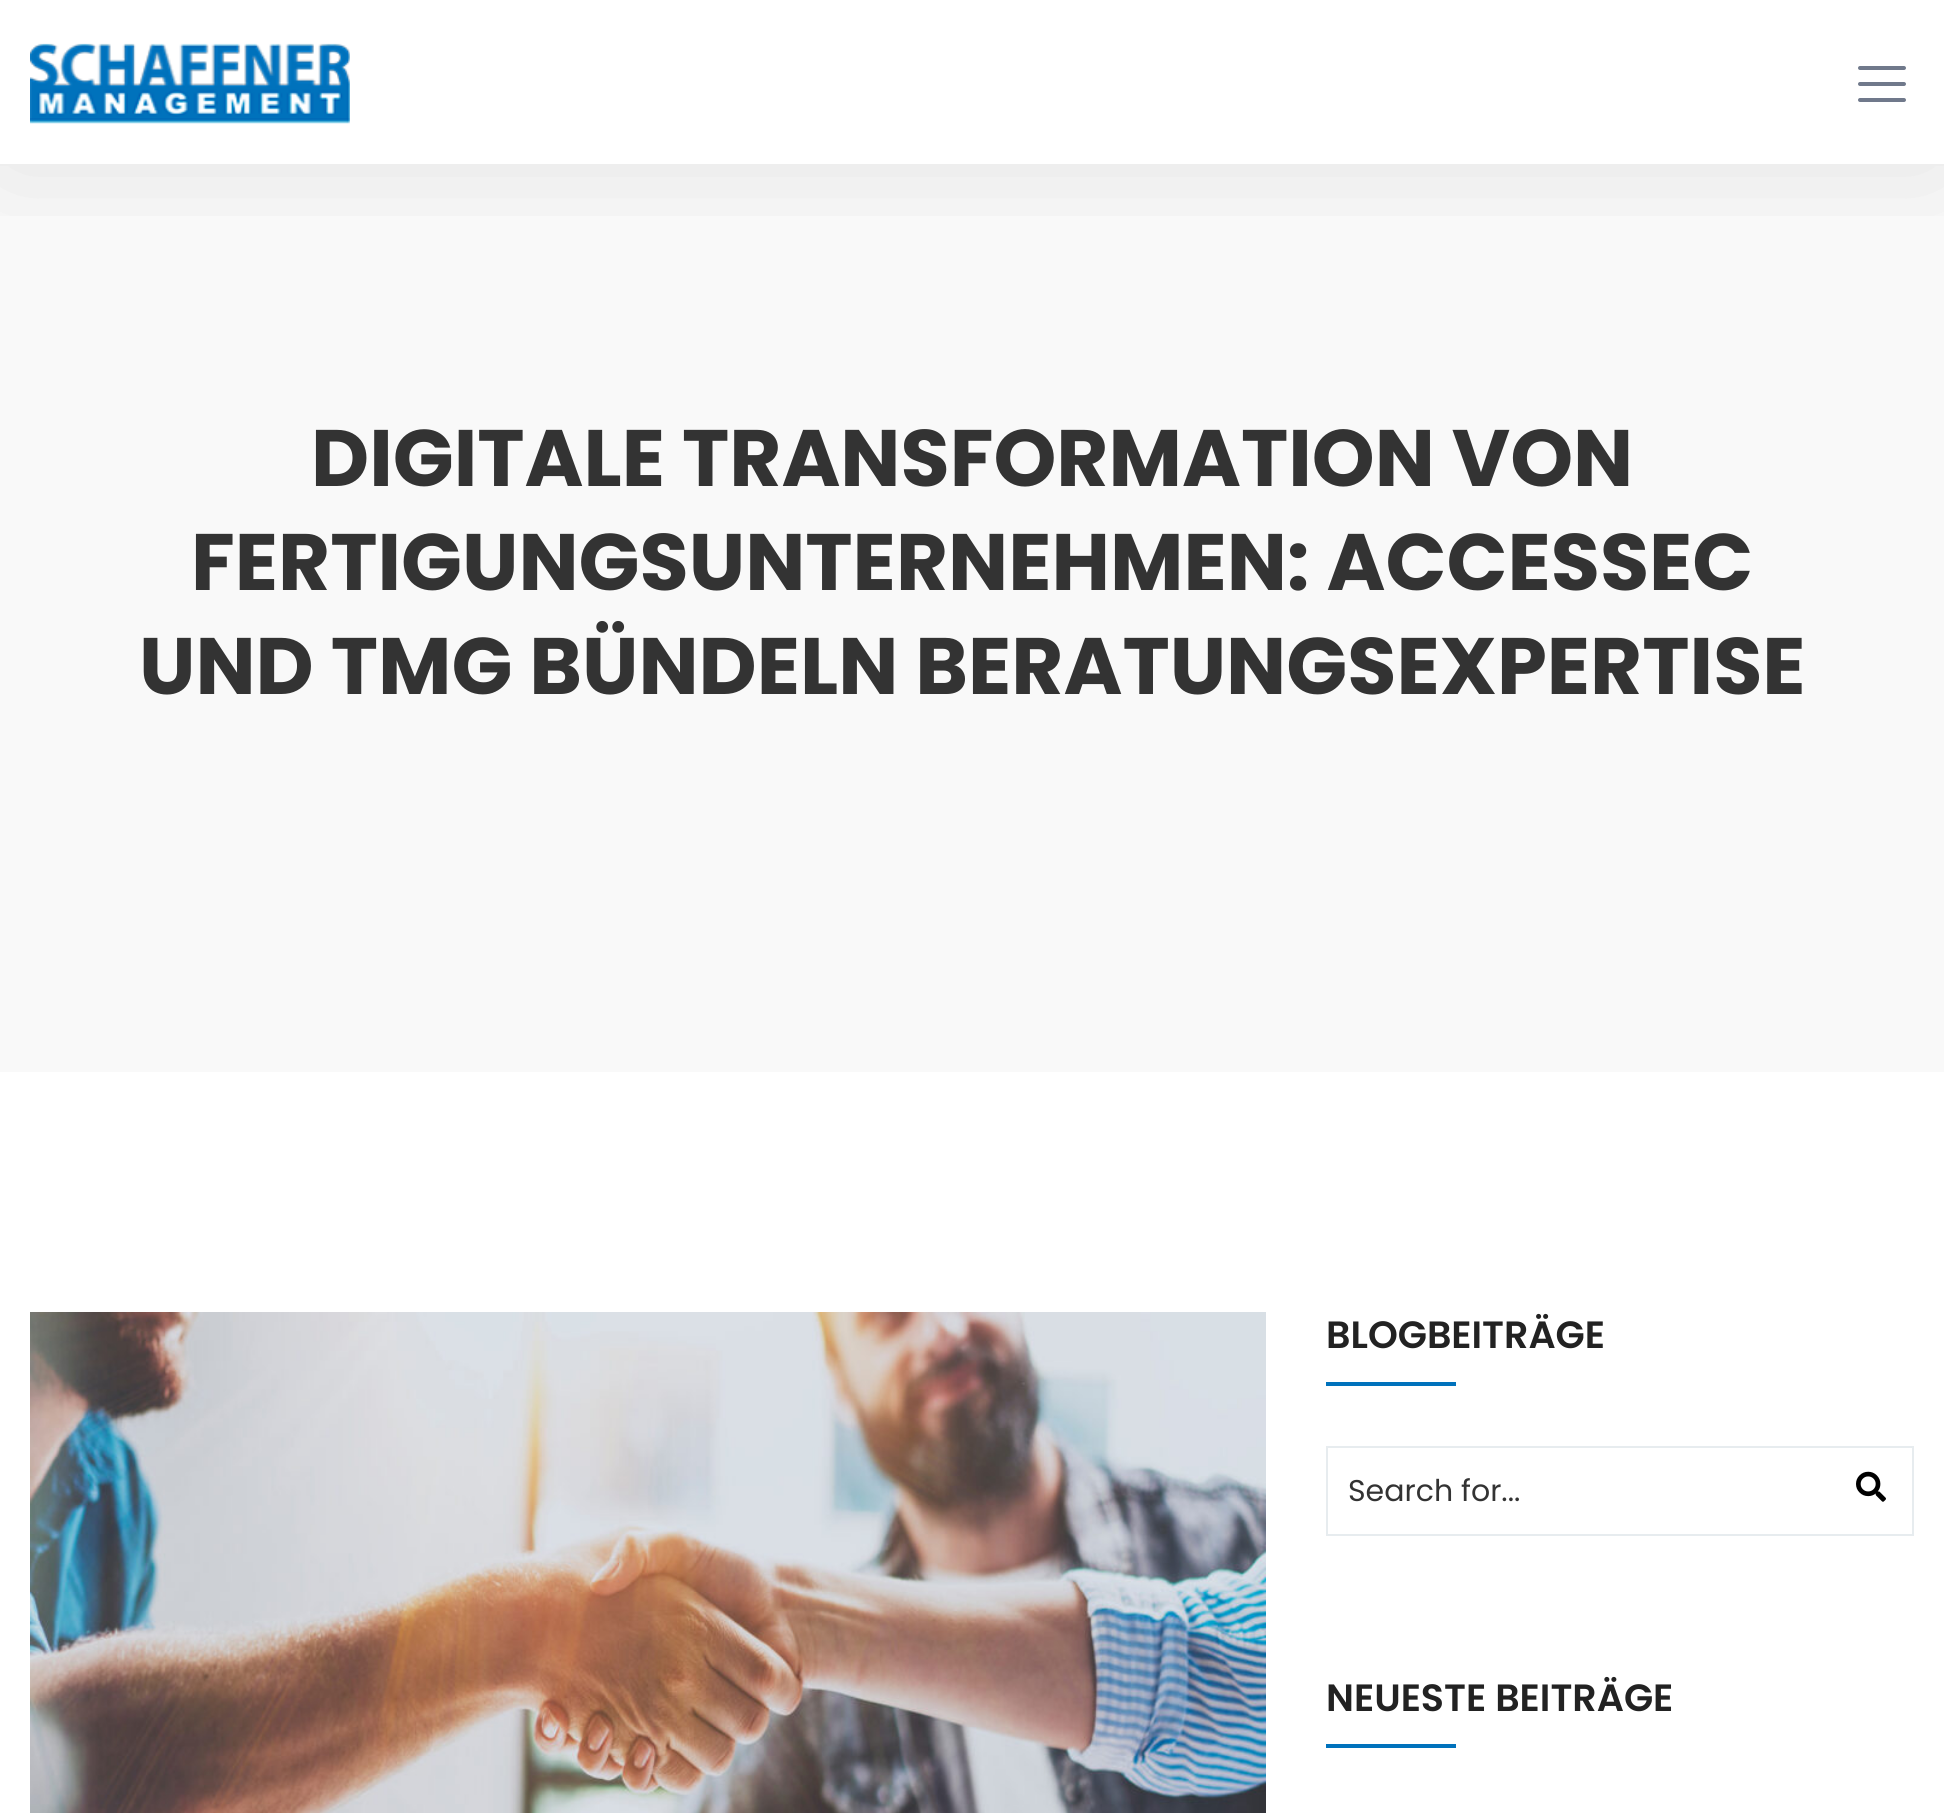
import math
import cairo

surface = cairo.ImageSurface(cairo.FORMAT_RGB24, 1944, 1813)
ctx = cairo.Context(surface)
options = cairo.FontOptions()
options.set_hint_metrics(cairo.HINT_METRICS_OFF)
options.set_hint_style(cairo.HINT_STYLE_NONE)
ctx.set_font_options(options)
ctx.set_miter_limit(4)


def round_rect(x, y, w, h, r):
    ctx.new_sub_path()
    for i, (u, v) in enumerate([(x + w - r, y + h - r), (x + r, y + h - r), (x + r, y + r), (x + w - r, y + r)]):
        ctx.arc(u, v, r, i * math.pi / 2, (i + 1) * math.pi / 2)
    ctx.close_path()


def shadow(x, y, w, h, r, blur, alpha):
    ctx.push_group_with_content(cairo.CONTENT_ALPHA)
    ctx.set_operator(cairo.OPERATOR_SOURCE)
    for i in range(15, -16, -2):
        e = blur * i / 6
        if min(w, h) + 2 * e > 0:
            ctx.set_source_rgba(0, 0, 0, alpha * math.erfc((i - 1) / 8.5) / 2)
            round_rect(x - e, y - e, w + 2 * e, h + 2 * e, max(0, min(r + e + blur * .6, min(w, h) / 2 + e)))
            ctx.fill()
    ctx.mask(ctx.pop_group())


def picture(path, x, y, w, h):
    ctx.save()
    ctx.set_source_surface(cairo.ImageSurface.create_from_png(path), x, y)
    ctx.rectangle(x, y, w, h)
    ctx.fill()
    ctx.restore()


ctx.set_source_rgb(1, 1, 1)
ctx.paint()
ctx.set_source_rgb(0.973, 0.973, 0.973)
ctx.rectangle(0, 166, 1944, 906)
ctx.fill()
ctx.save()
ctx.rectangle(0, 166, 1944, 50)
ctx.clip()
ctx.set_source_rgb(0, 0, 0)
shadow(0, 0, 1944, 166, 0, 65, 0.09)
ctx.restore()
ctx.set_source_rgb(0.933, 0.933, 0.933)
ctx.rectangle(0, 164, 1944, 2)
ctx.fill()
picture("img1.png", 30, 43, 320, 81)
ctx.set_source_rgb(0.439, 0.475, 0.545)
round_rect(1858, 98, 48, 4, 2)
ctx.fill()
round_rect(1858, 82, 48, 4, 2)
ctx.fill()
round_rect(1858, 66, 48, 4, 2)
ctx.fill()
ctx.select_font_face("Poppins", cairo.FONT_SLANT_NORMAL, cairo.FONT_WEIGHT_BOLD)
ctx.set_font_size(80)
ctx.set_source_rgb(0.2, 0.2, 0.2)
ctx.move_to(311, 486)
ctx.show_text("DIGITALE TRANSFORMATION VON")
ctx.move_to(191, 590)
ctx.show_text("FERTIGUNGSUNTERNEHMEN: ACCESSEC")
ctx.move_to(139, 694)
ctx.show_text("UND TMG BÜNDELN BERATUNGSEXPERTISE")
picture("img2.png", 30, 1312, 1236, 501)
ctx.select_font_face("Poppins SemiBold")
ctx.set_font_size(38)
ctx.set_source_rgb(0.133, 0.133, 0.133)
ctx.move_to(1326, 1348)
ctx.show_text("BLOGBEITRÄGE")
ctx.set_source_rgb(0, 0.447, 0.737)
ctx.rectangle(1326, 1382, 130, 4)
ctx.fill()
ctx.rectangle(1327, 1447, 586, 88)
ctx.set_source_rgb(0.906, 0.925, 0.937)
ctx.stroke()
ctx.select_font_face("Poppins")
ctx.set_font_size(30)
ctx.set_source_rgb(0.2, 0.2, 0.2)
ctx.move_to(1348, 1501)
ctx.show_text("Search for...")
picture("img3.png", 1856, 1471, 30, 31)
ctx.select_font_face("Poppins SemiBold")
ctx.set_font_size(38)
ctx.set_source_rgb(0.133, 0.133, 0.133)
ctx.move_to(1326, 1711)
ctx.show_text("NEUESTE BEITRÄGE")
ctx.set_source_rgb(0, 0.447, 0.737)
ctx.rectangle(1326, 1744, 130, 4)
ctx.fill()
surface.write_to_png("page.png")
